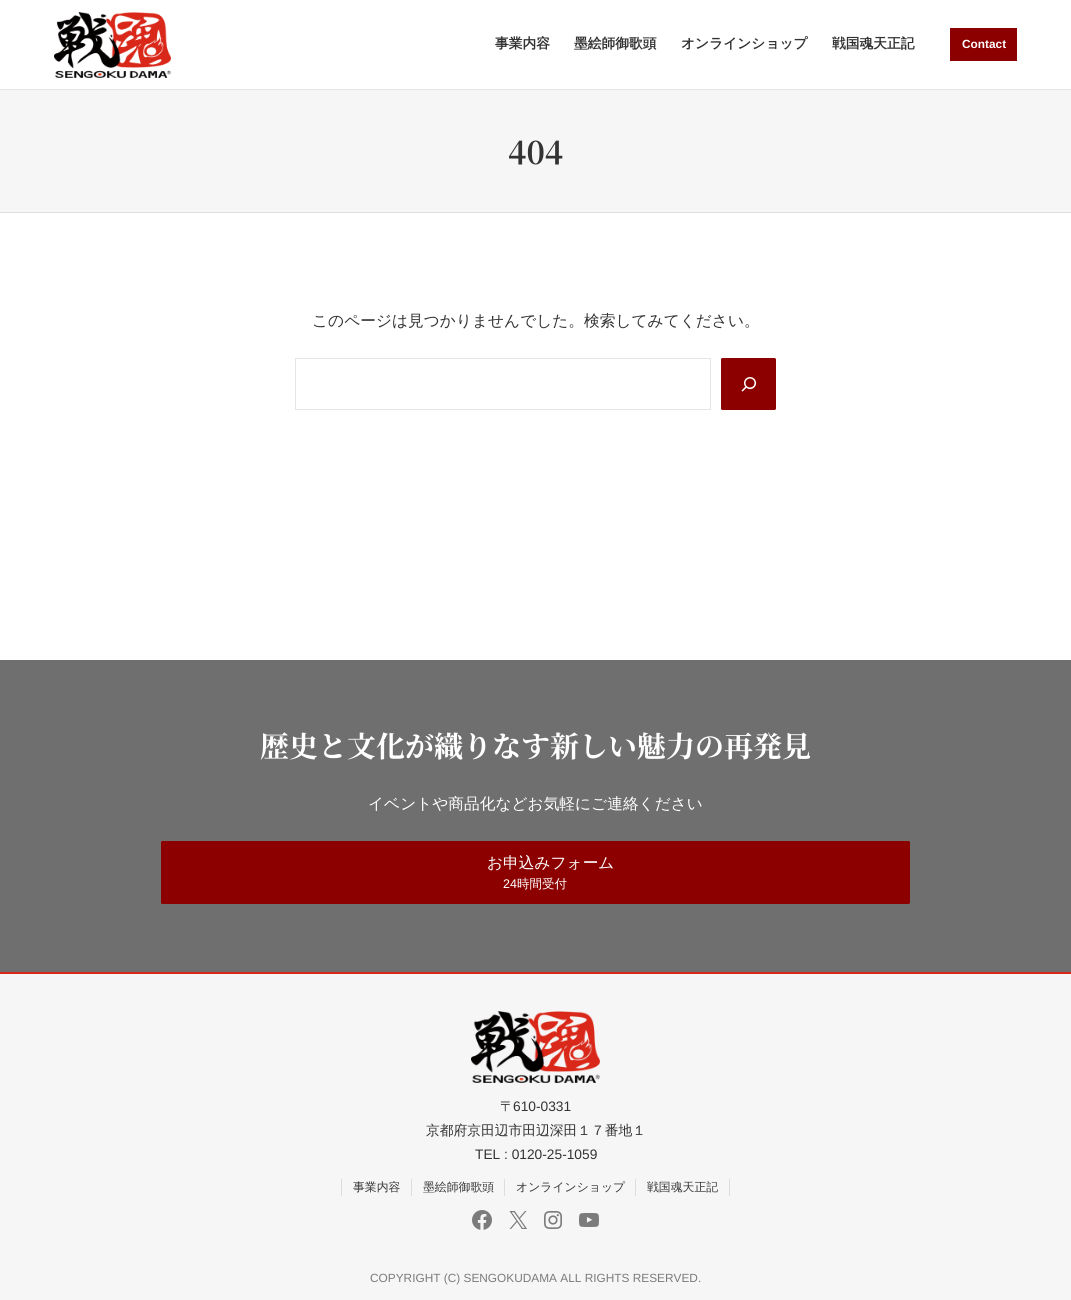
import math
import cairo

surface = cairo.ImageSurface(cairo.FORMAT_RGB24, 1071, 1300)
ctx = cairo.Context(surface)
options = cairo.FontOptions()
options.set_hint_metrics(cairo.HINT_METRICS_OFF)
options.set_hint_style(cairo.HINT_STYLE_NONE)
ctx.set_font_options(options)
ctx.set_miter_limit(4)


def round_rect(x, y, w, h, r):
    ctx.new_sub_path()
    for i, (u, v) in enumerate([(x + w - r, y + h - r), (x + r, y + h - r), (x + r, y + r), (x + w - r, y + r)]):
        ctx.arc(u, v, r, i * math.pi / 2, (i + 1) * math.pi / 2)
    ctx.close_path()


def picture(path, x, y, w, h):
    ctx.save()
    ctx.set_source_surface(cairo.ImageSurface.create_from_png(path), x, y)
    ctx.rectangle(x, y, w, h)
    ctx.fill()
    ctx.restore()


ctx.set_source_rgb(1, 1, 1)
ctx.paint()
picture("img1.png", 54, 12, 117, 66)
ctx.select_font_face("WenQuanYi Zen Hei", cairo.FONT_SLANT_NORMAL, cairo.FONT_WEIGHT_BOLD)
ctx.set_font_size(13.75)
ctx.set_source_rgb(0.2, 0.2, 0.2)
ctx.move_to(495, 48)
ctx.show_text("事業内容")
ctx.move_to(574, 48)
ctx.show_text("墨絵師御歌頭")
ctx.move_to(681, 48)
ctx.show_text("オンラインショップ")
ctx.move_to(832, 48)
ctx.show_text("戦国魂天正記")
ctx.set_source_rgb(0.549, 0, 0)
ctx.rectangle(950, 28, 67, 33)
ctx.fill()
ctx.select_font_face("Liberation Sans", cairo.FONT_SLANT_NORMAL, cairo.FONT_WEIGHT_BOLD)
ctx.set_font_size(11.85)
ctx.set_source_rgb(1, 1, 1)
ctx.move_to(962, 48)
ctx.show_text("Contact")
ctx.set_source_rgb(0.902, 0.902, 0.902)
ctx.rectangle(0, 89, 1071, 1)
ctx.fill()
ctx.set_source_rgb(0.961, 0.961, 0.961)
ctx.rectangle(0, 90, 1071, 122)
ctx.fill()
ctx.set_source_rgb(0.867, 0.867, 0.867)
ctx.rectangle(0, 212, 1071, 1)
ctx.fill()
ctx.select_font_face("Noto Serif JP", cairo.FONT_SLANT_NORMAL, cairo.FONT_WEIGHT_BOLD)
ctx.set_font_size(31)
ctx.set_source_rgb(0.2, 0.2, 0.2)
ctx.move_to(508, 164)
ctx.show_text("404")
ctx.select_font_face("WenQuanYi Zen Hei Medium")
ctx.set_font_size(15.7)
ctx.move_to(312, 326)
ctx.show_text("このページは見つかりませんでした。検索してみてください。")
ctx.rectangle(295.5, 358.5, 415, 51)
ctx.set_source_rgb(0.902, 0.902, 0.902)
ctx.set_line_width(1)
ctx.stroke()
ctx.set_source_rgb(0.549, 0, 0)
round_rect(721, 358, 55, 52, 1.5)
ctx.fill()
picture("img2.png", 741, 377, 16, 15)
ctx.set_source_rgb(0.435, 0.435, 0.435)
ctx.rectangle(0, 660, 1071, 312)
ctx.fill()
ctx.select_font_face("Noto Serif JP", cairo.FONT_SLANT_NORMAL, cairo.FONT_WEIGHT_BOLD)
ctx.set_font_size(29)
ctx.set_source_rgb(1, 1, 1)
ctx.move_to(260, 757)
ctx.show_text("歴史と文化が織りなす新しい魅力の再発見")
ctx.select_font_face("WenQuanYi Zen Hei Medium")
ctx.set_font_size(15.7)
ctx.move_to(368, 809)
ctx.show_text("イベントや商品化などお気軽にご連絡ください")
ctx.set_source_rgb(0.549, 0, 0)
round_rect(161.5, 841.5, 748, 62, 1)
ctx.fill_preserve()
ctx.stroke()
ctx.set_source_rgb(1, 1, 1)
ctx.move_to(487, 868)
ctx.show_text("お申込みフォーム")
ctx.select_font_face("Liberation Sans")
ctx.set_font_size(12.5)
ctx.move_to(503, 888)
ctx.show_text("24")
ctx.select_font_face("WenQuanYi Zen Hei Medium")
ctx.move_to(517, 888)
ctx.show_text("時間受付")
ctx.set_source_rgb(0.961, 0.961, 0.961)
ctx.rectangle(0, 974, 1071, 326)
ctx.fill()
ctx.set_source_rgb(0.851, 0.157, 0.098)
ctx.rectangle(0, 972, 1071, 2)
ctx.fill()
picture("img3.png", 471, 1011, 129, 72)
ctx.set_font_size(13.75)
ctx.set_source_rgb(0.2, 0.2, 0.2)
ctx.move_to(500, 1111)
ctx.show_text("〒")
ctx.select_font_face("Liberation Sans")
ctx.move_to(513, 1111)
ctx.show_text("610-0331")
ctx.select_font_face("WenQuanYi Zen Hei Medium")
ctx.move_to(426, 1135)
ctx.show_text("京都府京田辺市田辺深田１７番地１")
ctx.select_font_face("Liberation Sans")
ctx.move_to(475, 1159)
ctx.show_text("TEL : 0120-25-1059")
ctx.set_source_rgb(0.867, 0.867, 0.867)
ctx.rectangle(341, 1179, 1, 17)
ctx.fill()
ctx.select_font_face("WenQuanYi Zen Hei Medium")
ctx.set_font_size(11.85)
ctx.set_source_rgb(0.2, 0.2, 0.2)
ctx.move_to(353, 1191)
ctx.show_text("事業内容")
ctx.set_source_rgb(0.867, 0.867, 0.867)
ctx.rectangle(411, 1179, 1, 17)
ctx.fill()
ctx.set_source_rgb(0.2, 0.2, 0.2)
ctx.move_to(423, 1191)
ctx.show_text("墨絵師御歌頭")
ctx.set_source_rgb(0.867, 0.867, 0.867)
ctx.rectangle(504, 1179, 1, 17)
ctx.fill()
ctx.set_source_rgb(0.2, 0.2, 0.2)
ctx.move_to(516, 1191)
ctx.show_text("オンラインショップ")
ctx.set_source_rgb(0.867, 0.867, 0.867)
ctx.rectangle(729, 1179, 1, 17)
ctx.fill()
ctx.rectangle(635, 1179, 1, 17)
ctx.fill()
ctx.set_source_rgb(0.2, 0.2, 0.2)
ctx.move_to(647, 1191)
ctx.show_text("戦国魂天正記")
picture("img4.png", 472, 1210, 20, 20)
picture("img5.png", 509, 1211, 18, 18)
picture("img6.png", 544, 1211, 18, 18)
picture("img7.png", 579, 1213, 20, 14)
ctx.select_font_face("Liberation Sans")
ctx.set_source_rgb(0.482, 0.482, 0.482)
ctx.move_to(370, 1282)
ctx.show_text("COPYRIGHT (C) SENGOKUDAMA ALL RIGHTS RESERVED.")
surface.write_to_png("page.png")
